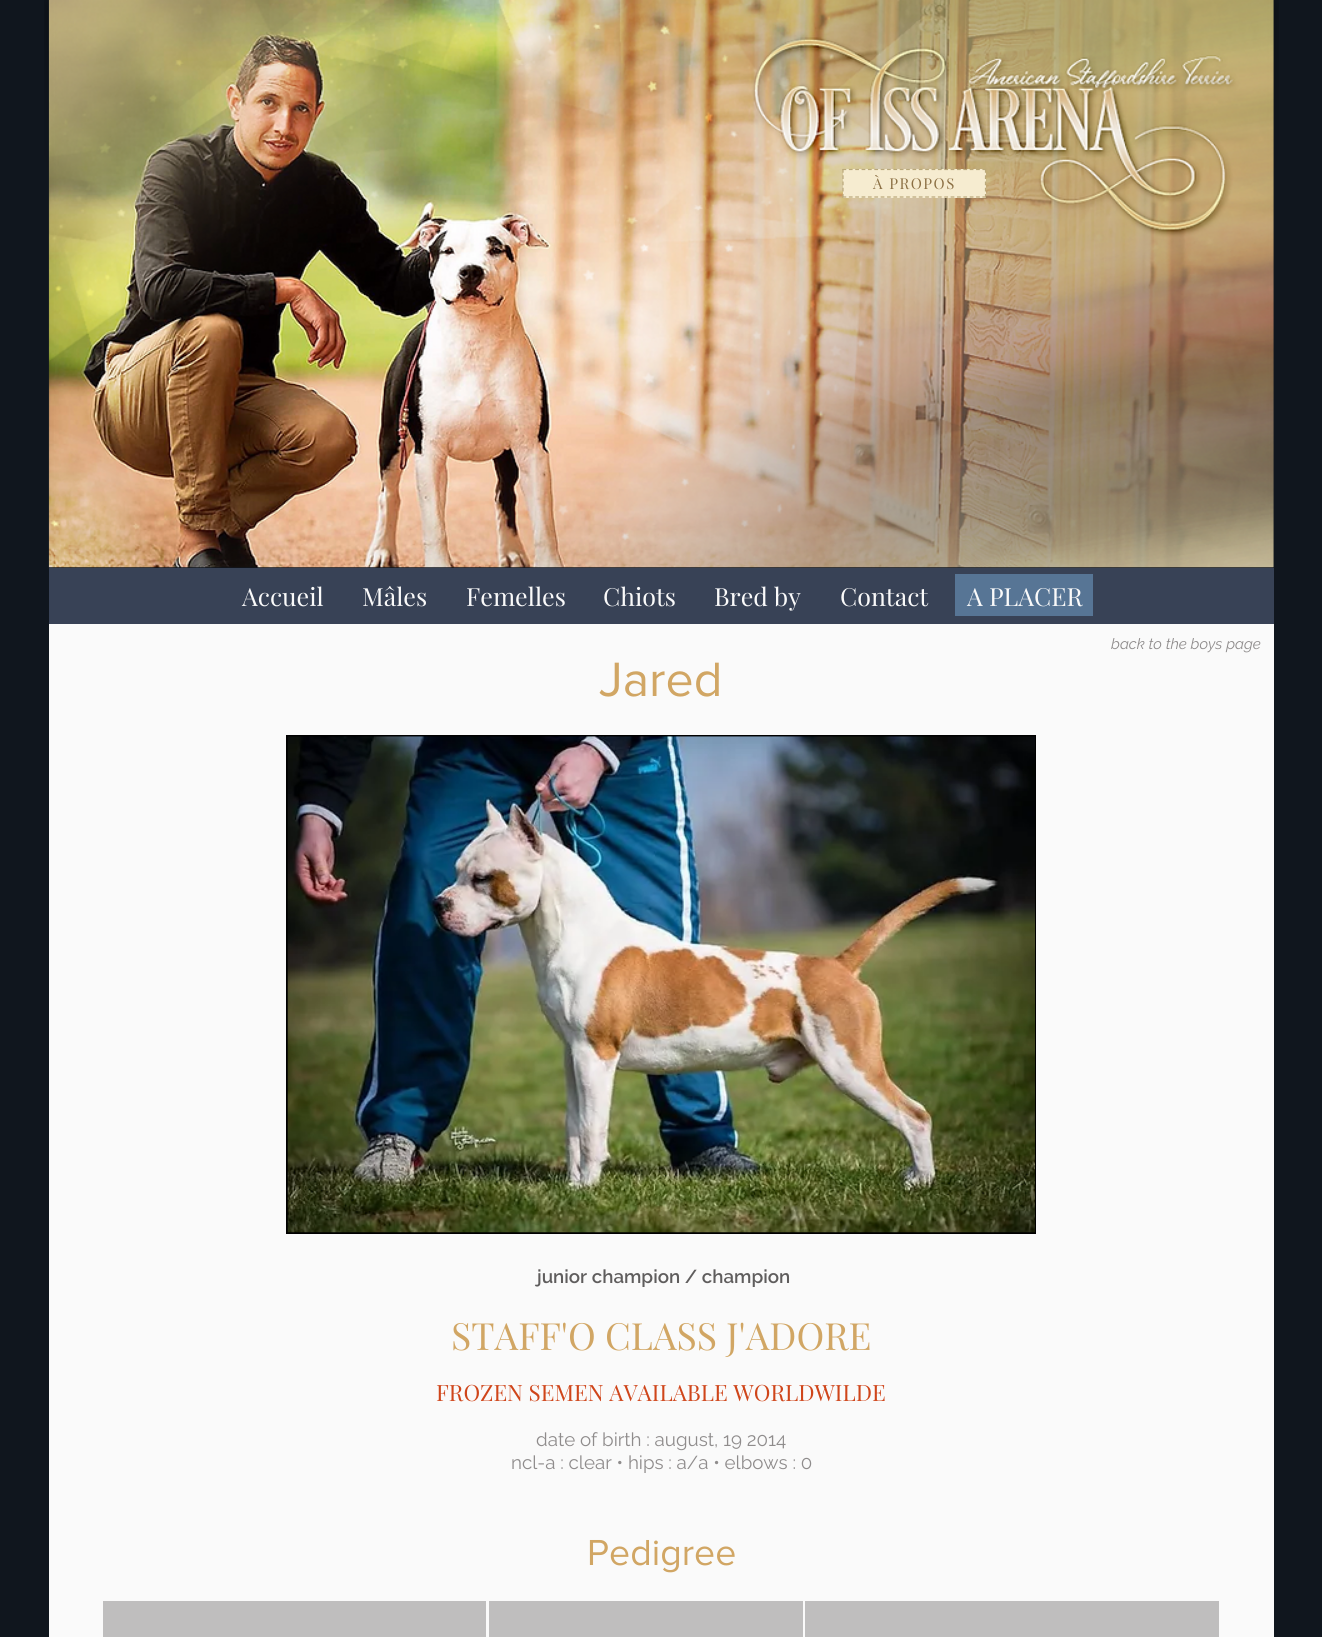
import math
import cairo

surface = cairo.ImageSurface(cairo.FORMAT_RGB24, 1322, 1637)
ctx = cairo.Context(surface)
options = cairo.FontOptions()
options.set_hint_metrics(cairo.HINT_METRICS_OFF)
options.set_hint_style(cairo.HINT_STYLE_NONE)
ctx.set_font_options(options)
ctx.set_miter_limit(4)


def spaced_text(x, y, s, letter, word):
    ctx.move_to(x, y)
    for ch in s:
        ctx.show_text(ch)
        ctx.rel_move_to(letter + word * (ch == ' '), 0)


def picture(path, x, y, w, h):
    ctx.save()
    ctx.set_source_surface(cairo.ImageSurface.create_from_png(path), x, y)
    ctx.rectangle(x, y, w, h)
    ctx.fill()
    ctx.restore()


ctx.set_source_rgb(0.063, 0.086, 0.118)
ctx.paint()
picture("img1.png", 44, 0, 5, 172)
picture("img2.png", 1274, 0, 5, 168)
picture("img3.png", 48, 0, 1226, 568)
ctx.set_source_rgb(0.961, 0.922, 0.816)
ctx.rectangle(843, 169, 143, 29)
ctx.fill()
ctx.new_path()
ctx.move_to(842.5, 169.5)
ctx.line_to(986, 169.5)
ctx.set_source_rgb(0.725, 0.659, 0.478)
ctx.set_line_width(1.2)
ctx.set_dash([3.75, 2.61])
ctx.stroke()
ctx.new_path()
ctx.move_to(985.5, 169)
ctx.line_to(985.5, 197.5)
ctx.set_dash([3.75, 2.5])
ctx.stroke()
ctx.new_path()
ctx.move_to(842.5, 197)
ctx.line_to(986, 197)
ctx.set_dash([3.75, 2.61])
ctx.stroke()
ctx.new_path()
ctx.move_to(843, 169)
ctx.line_to(843, 197.5)
ctx.set_dash([3.75, 2.5])
ctx.stroke()
ctx.select_font_face("Playfair Display")
ctx.set_font_size(15)
ctx.set_source_rgb(0.545, 0.435, 0.263)
spaced_text(873, 189, "À PROPOS", 1.5, 0)
ctx.set_source_rgb(0.22, 0.259, 0.337)
ctx.rectangle(49, 568, 1225, 56)
ctx.fill()
ctx.set_source_rgb(0.341, 0.459, 0.584)
ctx.rectangle(955, 574, 138, 42)
ctx.fill()
ctx.set_font_size(25)
ctx.set_source_rgb(0.98, 0.98, 0.98)
ctx.move_to(242, 606)
ctx.show_text("Accueil")
ctx.move_to(362, 606)
ctx.show_text("Mâles")
ctx.move_to(466, 606)
ctx.show_text("Femelles")
ctx.move_to(603, 606)
ctx.show_text("Chiots")
ctx.move_to(714, 606)
ctx.show_text("Bred by")
ctx.move_to(840, 606)
ctx.show_text("Contact")
ctx.move_to(967, 606)
ctx.show_text("A PLACER")
ctx.rectangle(49, 624, 1225, 1013)
ctx.fill()
ctx.select_font_face("Raleway", cairo.FONT_SLANT_ITALIC)
ctx.set_font_size(15)
ctx.set_source_rgb(0.561, 0.549, 0.549)
ctx.move_to(1111, 649)
ctx.show_text("back to the boys page")
ctx.select_font_face("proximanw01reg")
ctx.set_font_size(50)
ctx.set_source_rgb(0.82, 0.651, 0.392)
ctx.move_to(599, 696)
ctx.show_text("Jared")
ctx.set_source_rgb(0, 0, 0)
ctx.rectangle(286, 735, 750, 499)
ctx.fill()
picture("img4.png", 287, 736, 748, 497)
ctx.select_font_face("Raleway SemiBold")
ctx.set_font_size(18.75)
ctx.set_source_rgb(0.373, 0.365, 0.365)
ctx.move_to(537, 1283)
ctx.show_text("junior champion / champion")
ctx.select_font_face("Playfair Display")
ctx.set_font_size(37.5)
ctx.set_source_rgb(0.82, 0.651, 0.392)
ctx.move_to(451, 1350)
ctx.show_text("STAFF'O CLASS J'ADORE")
ctx.set_font_size(22.5)
ctx.set_source_rgb(0.812, 0.271, 0.102)
ctx.move_to(436, 1401)
ctx.show_text("FROZEN SEMEN AVAILABLE WORLDWILDE")
ctx.select_font_face("Raleway")
ctx.set_font_size(18.75)
ctx.set_source_rgb(0.561, 0.549, 0.549)
ctx.move_to(536, 1446)
ctx.show_text("date of birth : august, 19 2014")
ctx.move_to(511, 1469)
ctx.show_text("ncl-a : clear • hips : a/a • elbows : 0")
ctx.select_font_face("proximanw01reg")
ctx.set_font_size(37.5)
ctx.set_source_rgb(0.82, 0.651, 0.392)
ctx.move_to(587, 1565)
ctx.show_text("Pedigree")
ctx.set_source_rgb(0.749, 0.745, 0.745)
ctx.rectangle(103, 1601, 383, 36)
ctx.fill()
ctx.rectangle(489, 1601, 314, 36)
ctx.fill()
ctx.rectangle(805, 1601, 414, 36)
ctx.fill()
surface.write_to_png("page.png")
